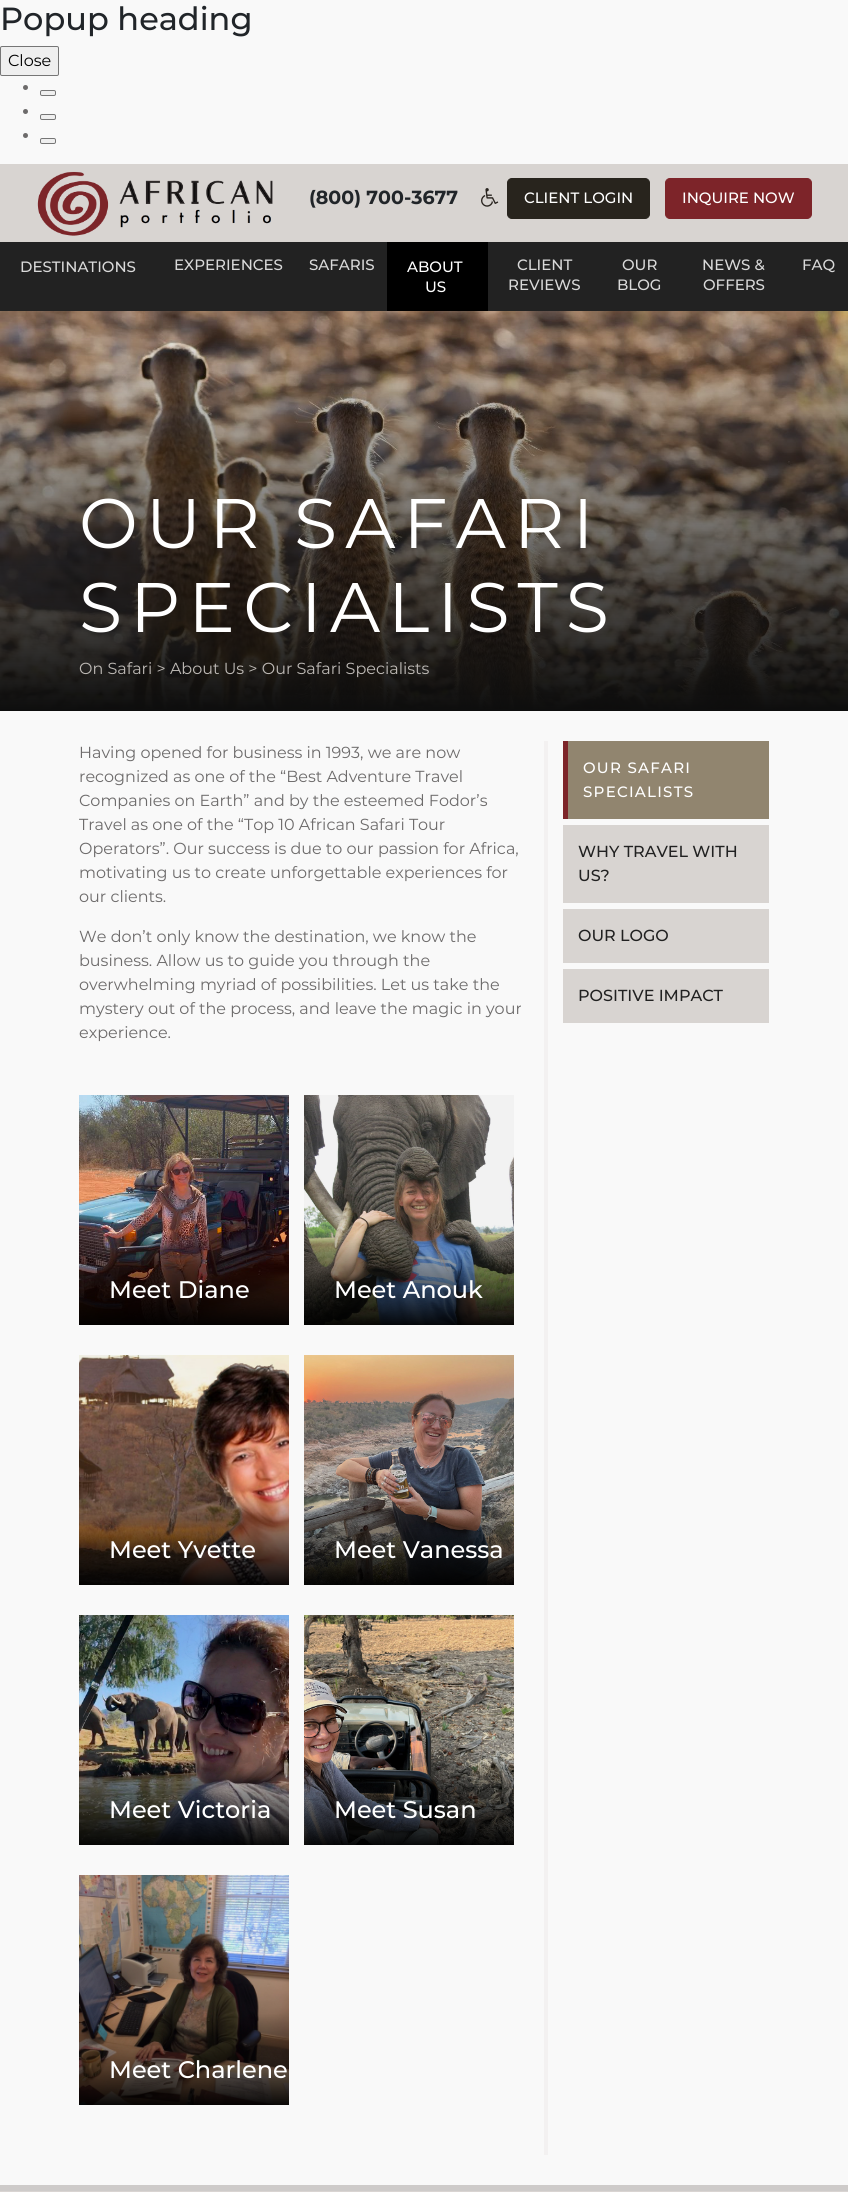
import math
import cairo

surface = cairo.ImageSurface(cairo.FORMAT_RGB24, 848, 2192)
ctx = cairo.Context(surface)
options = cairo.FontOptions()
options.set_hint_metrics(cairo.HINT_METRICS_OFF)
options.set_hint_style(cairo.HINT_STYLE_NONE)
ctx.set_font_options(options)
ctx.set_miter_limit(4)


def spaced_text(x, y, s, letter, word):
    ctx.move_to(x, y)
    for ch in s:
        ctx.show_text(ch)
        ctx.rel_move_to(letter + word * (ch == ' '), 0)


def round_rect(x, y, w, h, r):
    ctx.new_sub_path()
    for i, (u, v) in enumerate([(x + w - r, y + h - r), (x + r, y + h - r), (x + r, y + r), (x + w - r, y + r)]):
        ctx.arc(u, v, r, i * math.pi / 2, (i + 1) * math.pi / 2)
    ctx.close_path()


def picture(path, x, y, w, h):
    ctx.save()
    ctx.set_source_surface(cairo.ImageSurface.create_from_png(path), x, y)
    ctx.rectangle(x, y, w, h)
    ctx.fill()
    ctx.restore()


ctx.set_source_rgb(0.976, 0.976, 0.976)
ctx.paint()
ctx.select_font_face("Montserrat Medium")
ctx.set_font_size(32)
ctx.set_source_rgb(0.129, 0.145, 0.161)
ctx.move_to(0, 30)
ctx.show_text("Popup heading")
ctx.set_source_rgb(0.937, 0.937, 0.937)
round_rect(0.5, 46.5, 58, 29, 1.5)
ctx.fill_preserve()
ctx.set_source_rgb(0.463, 0.463, 0.463)
ctx.set_line_width(1)
ctx.stroke()
ctx.select_font_face("Montserrat")
ctx.set_font_size(16)
ctx.set_source_rgb(0, 0, 0)
ctx.move_to(8, 66)
ctx.show_text("Close")
ctx.set_source_rgb(0.427, 0.42, 0.42)
ctx.new_path()
ctx.arc(25.5, 87.5, 2.5, 0, 2 * math.pi)
ctx.fill()
ctx.set_source_rgb(0.937, 0.937, 0.937)
round_rect(40.5, 90.5, 15, 5, 1.5)
ctx.fill_preserve()
ctx.set_source_rgb(0.463, 0.463, 0.463)
ctx.stroke()
ctx.set_source_rgb(0.427, 0.42, 0.42)
ctx.arc(25.5, 111.5, 2.5, 0, 2 * math.pi)
ctx.fill()
ctx.set_source_rgb(0.937, 0.937, 0.937)
round_rect(40.5, 114.5, 15, 5, 1.5)
ctx.fill_preserve()
ctx.set_source_rgb(0.463, 0.463, 0.463)
ctx.stroke()
ctx.set_source_rgb(0.427, 0.42, 0.42)
ctx.arc(25.5, 135.5, 2.5, 0, 2 * math.pi)
ctx.fill()
ctx.set_source_rgb(0.937, 0.937, 0.937)
round_rect(40.5, 138.5, 15, 5, 1.5)
ctx.fill_preserve()
ctx.set_source_rgb(0.463, 0.463, 0.463)
ctx.stroke()
ctx.set_source_rgb(0.847, 0.831, 0.82)
ctx.rectangle(0, 164, 848, 78)
ctx.fill()
picture("img1.png", 37, 171, 236, 65)
ctx.select_font_face("Montserrat", cairo.FONT_SLANT_NORMAL, cairo.FONT_WEIGHT_BOLD)
ctx.set_font_size(19)
ctx.set_source_rgb(0.129, 0.145, 0.161)
ctx.move_to(309, 204)
ctx.show_text("(800) 700-3677")
picture("img2.png", 481, 188, 18, 19)
ctx.set_source_rgb(0.157, 0.141, 0.114)
round_rect(507.5, 178.5, 142, 40, 4.5)
ctx.fill_preserve()
ctx.stroke()
ctx.select_font_face("Montserrat Medium")
ctx.set_font_size(15)
ctx.set_source_rgb(1, 1, 1)
ctx.move_to(524, 203)
ctx.show_text("CLIENT LOGIN")
ctx.set_source_rgb(0.49, 0.141, 0.161)
round_rect(665.5, 178.5, 146, 40, 4.5)
ctx.fill_preserve()
ctx.stroke()
ctx.set_source_rgb(1, 1, 1)
ctx.move_to(682, 203)
ctx.show_text("INQUIRE NOW")
ctx.set_source_rgb(0.133, 0.133, 0.133)
ctx.rectangle(0, 242, 848, 69)
ctx.fill()
ctx.set_source_rgb(0.851, 0.851, 0.851)
ctx.move_to(20, 272)
ctx.show_text("DESTINATIONS")
ctx.move_to(174, 270)
ctx.show_text("EXPERIENCES")
ctx.move_to(309, 270)
ctx.show_text("SAFARIS")
ctx.set_source_rgb(0, 0, 0)
ctx.rectangle(387, 242, 101, 69)
ctx.fill()
ctx.set_source_rgb(1, 1, 1)
ctx.move_to(407, 272)
ctx.show_text("ABOUT")
ctx.move_to(425, 292)
ctx.show_text("US")
ctx.set_source_rgb(0.851, 0.851, 0.851)
ctx.move_to(517, 270)
ctx.show_text("CLIENT")
ctx.move_to(508, 290)
ctx.show_text("REVIEWS")
ctx.move_to(622, 270)
ctx.show_text("OUR")
ctx.move_to(617, 290)
ctx.show_text("BLOG")
ctx.move_to(702, 270)
ctx.show_text("NEWS &")
ctx.move_to(703, 290)
ctx.show_text("OFFERS")
ctx.move_to(802, 270)
ctx.show_text("FAQ")
picture("img3.png", 0, 311, 848, 398)
gradient = cairo.LinearGradient(424, 291, 424, 711)
gradient.add_color_stop_rgba(0, 0.051, 0.051, 0.051, 0)
gradient.add_color_stop_rgba(1, 0.051, 0.051, 0.051, 1)
ctx.set_source(gradient)
ctx.rectangle(0, 311, 848, 400)
ctx.fill()
ctx.select_font_face("Montserrat")
ctx.set_font_size(70)
ctx.set_source_rgb(1, 1, 1)
spaced_text(79, 548, "OUR SAFARI", 8, 0)
spaced_text(79, 632, "SPECIALISTS", 8, 0)
ctx.set_font_size(16)
ctx.set_source_rgb(0.741, 0.725, 0.71)
ctx.move_to(79, 674)
ctx.show_text("On Safari > About Us > Our Safari Specialists")
ctx.set_source_rgb(0.427, 0.42, 0.42)
ctx.move_to(79, 758)
ctx.show_text("Having opened for business in 1993, we are now")
ctx.move_to(79, 782)
ctx.show_text("recognized as one of the “Best Adventure Travel")
ctx.move_to(79, 806)
ctx.show_text("Companies on Earth” and by the esteemed Fodor’s")
ctx.move_to(79, 830)
ctx.show_text("Travel as one of the “Top 10 African Safari Tour")
ctx.move_to(79, 854)
ctx.show_text("Operators”. Our success is due to our passion for Africa,")
ctx.move_to(79, 878)
ctx.show_text("motivating us to create unforgettable experiences for")
ctx.move_to(79, 902)
ctx.show_text("our clients.")
ctx.move_to(79, 942)
ctx.show_text("We don’t only know the destination, we know the")
ctx.move_to(79, 966)
ctx.show_text("business. Allow us to guide you through the")
ctx.move_to(79, 990)
ctx.show_text("overwhelming myriad of possibilities. Let us take the")
ctx.move_to(79, 1014)
ctx.show_text("mystery out of the process, and leave the magic in your")
ctx.move_to(79, 1038)
ctx.show_text("experience.")
picture("img4.png", 79, 1095, 210, 230)
ctx.select_font_face("Montserrat Medium")
ctx.set_font_size(24)
ctx.set_source_rgb(1, 1, 1)
ctx.move_to(109, 1298)
ctx.show_text("Meet Diane")
picture("img5.png", 304, 1095, 210, 230)
ctx.move_to(334, 1298)
ctx.show_text("Meet Anouk")
picture("img6.png", 79, 1355, 210, 230)
ctx.move_to(109, 1558)
ctx.show_text("Meet Yvette")
picture("img7.png", 304, 1355, 210, 230)
ctx.move_to(334, 1558)
ctx.show_text("Meet Vanessa")
picture("img8.png", 79, 1615, 210, 230)
ctx.move_to(109, 1818)
ctx.show_text("Meet Victoria")
picture("img9.png", 304, 1615, 210, 230)
ctx.move_to(334, 1818)
ctx.show_text("Meet Susan")
picture("img10.png", 79, 1875, 210, 230)
ctx.move_to(109, 2078)
ctx.show_text("Meet Charlene")
ctx.set_source_rgb(0.953, 0.945, 0.945)
ctx.rectangle(544, 741, 4, 1414)
ctx.fill()
ctx.set_source_rgb(0.569, 0.522, 0.435)
ctx.rectangle(568, 741, 201, 78)
ctx.fill()
ctx.set_source_rgb(0.49, 0.145, 0.161)
ctx.rectangle(563, 741, 5, 78)
ctx.fill()
ctx.set_font_size(15)
ctx.set_source_rgb(1, 1, 1)
spaced_text(583, 773, "OUR SAFARI", 1.25, 0)
spaced_text(583, 797, "SPECIALISTS", 1.25, 0)
ctx.set_source_rgb(0.847, 0.831, 0.82)
ctx.rectangle(563, 825, 206, 78)
ctx.fill()
ctx.set_font_size(16)
ctx.set_source_rgb(0.129, 0.129, 0.129)
ctx.move_to(578, 857)
ctx.show_text("WHY TRAVEL WITH")
ctx.move_to(578, 881)
ctx.show_text("US?")
ctx.set_source_rgb(0.847, 0.831, 0.82)
ctx.rectangle(563, 909, 206, 54)
ctx.fill()
ctx.set_source_rgb(0.129, 0.129, 0.129)
ctx.move_to(578, 941)
ctx.show_text("OUR LOGO")
ctx.set_source_rgb(0.847, 0.831, 0.82)
ctx.rectangle(563, 969, 206, 54)
ctx.fill()
ctx.set_source_rgb(0.129, 0.129, 0.129)
ctx.move_to(578, 1001)
ctx.show_text("POSITIVE IMPACT")
ctx.set_source_rgb(0.851, 0.831, 0.824)
ctx.rectangle(0, 2191, 848, 1)
ctx.fill()
ctx.set_source_rgb(0.808, 0.796, 0.792)
ctx.rectangle(0, 2185, 848, 6)
ctx.fill()
surface.write_to_png("page.png")
